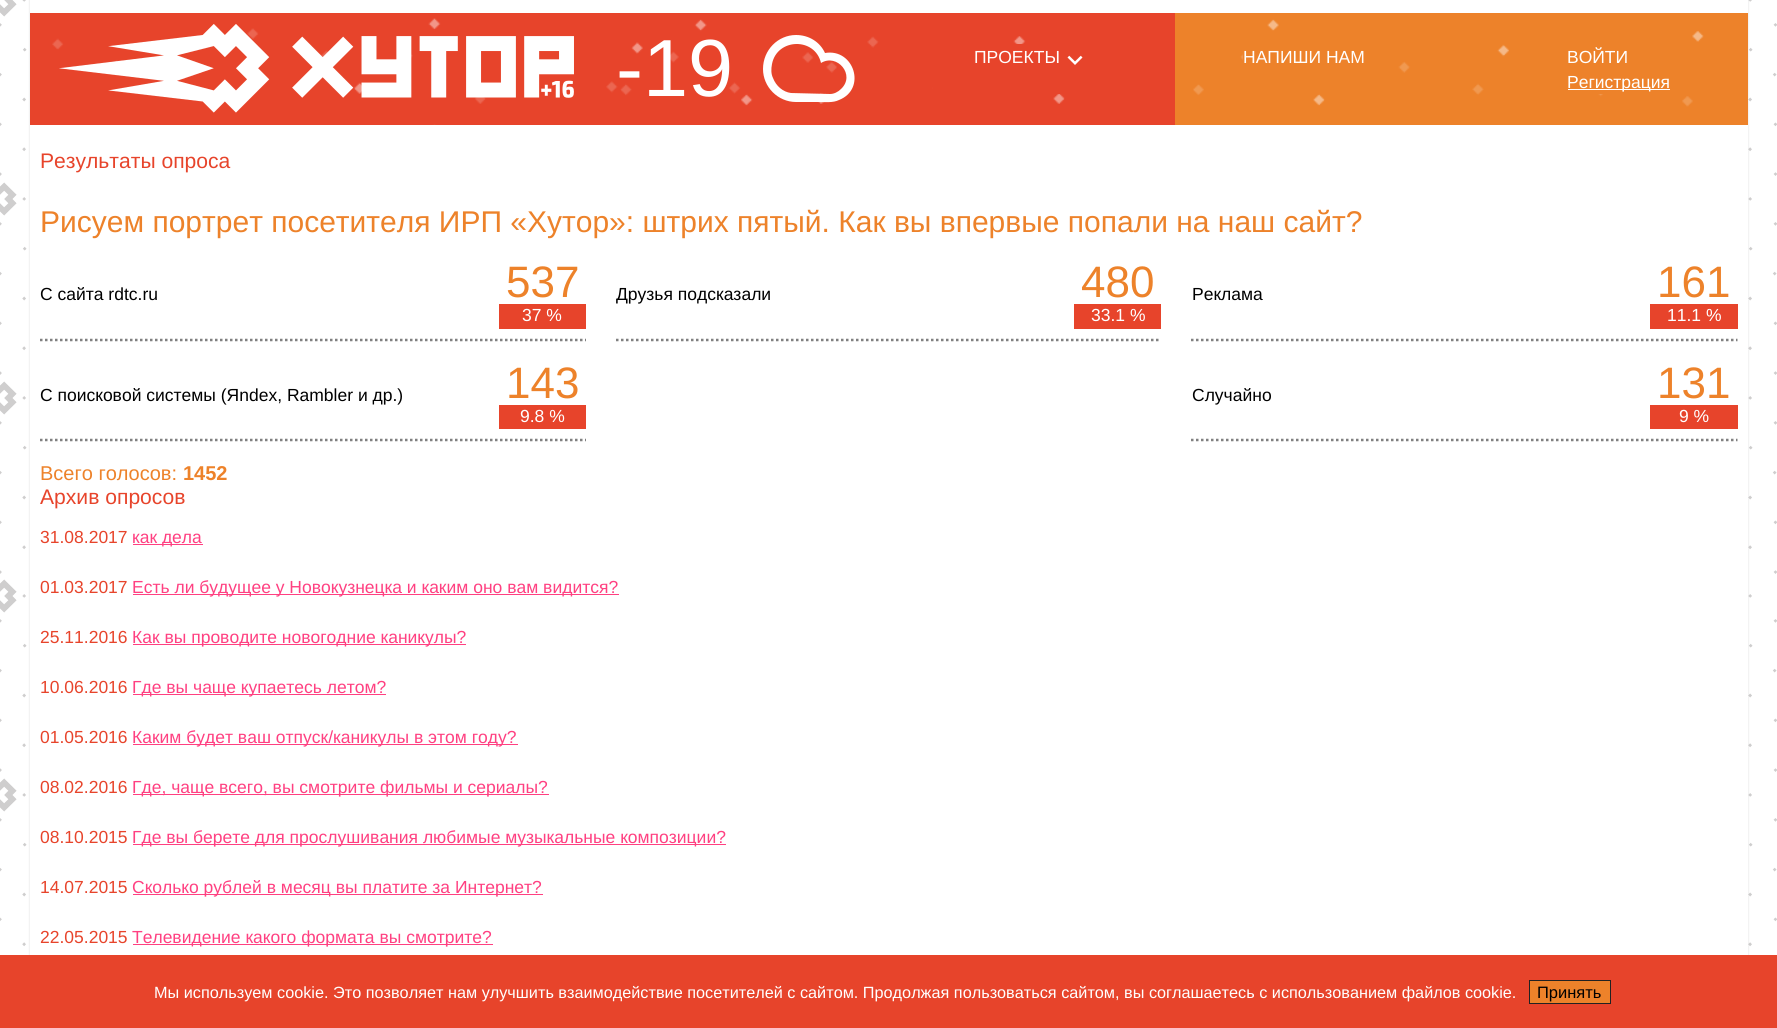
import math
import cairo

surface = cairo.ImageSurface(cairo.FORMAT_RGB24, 1777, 1028)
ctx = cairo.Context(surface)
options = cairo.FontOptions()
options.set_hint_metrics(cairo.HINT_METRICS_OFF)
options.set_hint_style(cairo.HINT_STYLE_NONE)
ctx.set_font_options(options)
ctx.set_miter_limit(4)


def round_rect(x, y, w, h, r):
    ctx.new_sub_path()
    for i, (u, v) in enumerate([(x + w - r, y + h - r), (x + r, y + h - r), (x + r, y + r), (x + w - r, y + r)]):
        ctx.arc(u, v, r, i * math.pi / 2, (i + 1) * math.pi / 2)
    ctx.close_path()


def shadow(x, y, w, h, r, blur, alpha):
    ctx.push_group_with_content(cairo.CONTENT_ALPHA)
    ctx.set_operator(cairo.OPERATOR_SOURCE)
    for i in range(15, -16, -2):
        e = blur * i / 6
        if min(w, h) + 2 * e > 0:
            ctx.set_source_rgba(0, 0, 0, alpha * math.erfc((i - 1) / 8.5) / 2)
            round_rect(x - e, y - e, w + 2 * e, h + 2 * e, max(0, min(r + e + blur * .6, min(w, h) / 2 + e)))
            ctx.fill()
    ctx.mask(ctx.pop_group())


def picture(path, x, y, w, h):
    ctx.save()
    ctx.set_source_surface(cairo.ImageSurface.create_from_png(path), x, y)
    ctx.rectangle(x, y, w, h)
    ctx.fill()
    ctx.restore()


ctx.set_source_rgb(1, 1, 1)
ctx.paint()
picture("img1.png", 0, 0, 1777, 947)
ctx.set_source_rgb(0, 0, 0)
shadow(30, -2, 1718, 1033, 0, 1, 0.14)
ctx.set_source_rgb(1, 1, 1)
ctx.rectangle(30, 0, 1718, 955)
ctx.fill()
ctx.set_source_rgb(0.906, 0.267, 0.169)
ctx.rectangle(30, 13, 1145, 112)
ctx.fill()
picture("img2.png", 52, 18, 1013, 107)
picture("img3.png", 59, 24, 515, 89)
picture("img4.png", 620, 19, 217, 87)
ctx.select_font_face("Liberation Sans")
ctx.set_font_size(81)
ctx.set_source_rgb(1, 1, 1)
ctx.move_to(616, 96)
ctx.show_text("-19")
ctx.set_fill_rule(cairo.FILL_RULE_EVEN_ODD)
ctx.new_path()
ctx.move_to(796, 102)
ctx.curve_to(778, 102, 763, 87, 763, 69)
ctx.curve_to(763, 50, 778, 35, 796, 35)
ctx.curve_to(809, 35, 820, 42, 825, 53)
ctx.curve_to(854, 48, 867, 89, 839, 100)
ctx.curve_to(833, 103, 825, 102, 818, 102)
ctx.close_path()
ctx.move_to(830, 94)
ctx.curve_to(834, 94, 838, 92, 841, 89)
ctx.curve_to(856, 75, 837, 53, 821, 63)
ctx.curve_to(815, 37, 777, 38, 772, 64)
ctx.curve_to(771, 69, 771, 74, 773, 78)
ctx.curve_to(776, 86, 783, 92, 791, 93)
ctx.close_path()
ctx.fill()
ctx.set_source_rgb(0.906, 0.267, 0.169)
ctx.rectangle(933, 44, 128, 50)
ctx.fill()
ctx.set_font_size(17.5)
ctx.set_source_rgb(1, 1, 1)
ctx.move_to(974, 63)
ctx.show_text("ПРОЕКТЫ")
picture("img5.png", 1067, 55, 16, 10)
ctx.set_source_rgb(0.929, 0.51, 0.165)
ctx.rectangle(1175, 13, 573, 112)
ctx.fill()
picture("img6.png", 1193, 19, 511, 88)
ctx.rectangle(1243, 51, 9, 12)
ctx.fill()
ctx.set_source_rgb(1, 1, 1)
ctx.move_to(1243, 63)
ctx.show_text("НАПИШИ НАМ")
ctx.set_source_rgb(0.929, 0.51, 0.165)
ctx.rectangle(1595, 85, 12, 9)
ctx.fill()
ctx.set_source_rgb(1, 1, 1)
ctx.move_to(1567, 63)
ctx.show_text("ВОЙТИ")
ctx.rectangle(1568, 89, 102, 1)
ctx.fill()
ctx.move_to(1567, 88)
ctx.show_text("Регистрация")
ctx.set_font_size(21.1)
ctx.set_source_rgb(0.906, 0.267, 0.169)
ctx.move_to(40, 168)
ctx.show_text("Результаты опроса")
ctx.set_font_size(30)
ctx.set_source_rgb(0.929, 0.51, 0.165)
ctx.move_to(40, 232)
ctx.show_text("Рисуем портрет посетителя ИРП «Хутор»: штрих пятый. Как вы впервые попали на наш сайт?")
ctx.new_path()
ctx.move_to(40, 340)
ctx.line_to(586, 340)
ctx.set_source_rgb(0.502, 0.502, 0.502)
ctx.set_line_width(2.5)
ctx.set_dash([2.5, 2.5])
ctx.stroke()
ctx.set_font_size(17.5)
ctx.set_source_rgb(0, 0, 0)
ctx.move_to(40, 300)
ctx.show_text("С сайта rdtc.ru")
ctx.set_font_size(44)
ctx.set_source_rgb(0.929, 0.51, 0.165)
ctx.move_to(506, 297)
ctx.show_text("537")
ctx.set_source_rgb(0.906, 0.267, 0.169)
ctx.rectangle(499, 304, 87, 25)
ctx.fill()
ctx.set_font_size(17.5)
ctx.set_source_rgb(1, 1, 1)
ctx.move_to(522, 321)
ctx.show_text("37 %")
ctx.new_path()
ctx.move_to(616, 340)
ctx.line_to(1161, 340)
ctx.set_source_rgb(0.502, 0.502, 0.502)
ctx.stroke()
ctx.set_source_rgb(0, 0, 0)
ctx.move_to(616, 300)
ctx.show_text("Друзья подсказали")
ctx.set_font_size(44)
ctx.set_source_rgb(0.929, 0.51, 0.165)
ctx.move_to(1081, 297)
ctx.show_text("480")
ctx.set_source_rgb(0.906, 0.267, 0.169)
ctx.rectangle(1074, 304, 87, 25)
ctx.fill()
ctx.set_font_size(17.5)
ctx.set_source_rgb(1, 1, 1)
ctx.move_to(1091, 321)
ctx.show_text("33.1 %")
ctx.new_path()
ctx.move_to(1191, 340)
ctx.line_to(1737.5, 340)
ctx.set_source_rgb(0.502, 0.502, 0.502)
ctx.stroke()
ctx.set_source_rgb(0, 0, 0)
ctx.move_to(1192, 300)
ctx.show_text("Реклама")
ctx.set_font_size(44)
ctx.set_source_rgb(0.929, 0.51, 0.165)
ctx.move_to(1657, 297)
ctx.show_text("161")
ctx.set_source_rgb(0.906, 0.267, 0.169)
ctx.rectangle(1650, 304, 88, 25)
ctx.fill()
ctx.set_font_size(17.5)
ctx.set_source_rgb(1, 1, 1)
ctx.move_to(1667, 321)
ctx.show_text("11.1 %")
ctx.new_path()
ctx.move_to(40, 440)
ctx.line_to(586, 440)
ctx.set_source_rgb(0.502, 0.502, 0.502)
ctx.stroke()
ctx.set_source_rgb(0, 0, 0)
ctx.move_to(40, 401)
ctx.show_text("С поисковой системы (Яndex, Rambler и др.)")
ctx.set_font_size(44)
ctx.set_source_rgb(0.929, 0.51, 0.165)
ctx.move_to(506, 398)
ctx.show_text("143")
ctx.set_source_rgb(0.906, 0.267, 0.169)
ctx.rectangle(499, 405, 87, 24)
ctx.fill()
ctx.set_font_size(17.5)
ctx.set_source_rgb(1, 1, 1)
ctx.move_to(520, 422)
ctx.show_text("9.8 %")
ctx.new_path()
ctx.move_to(1191, 440)
ctx.line_to(1737.5, 440)
ctx.set_source_rgb(0.502, 0.502, 0.502)
ctx.stroke()
ctx.set_source_rgb(0, 0, 0)
ctx.move_to(1192, 401)
ctx.show_text("Случайно")
ctx.set_font_size(44)
ctx.set_source_rgb(0.929, 0.51, 0.165)
ctx.move_to(1657, 398)
ctx.show_text("131")
ctx.set_source_rgb(0.906, 0.267, 0.169)
ctx.rectangle(1650, 405, 88, 24)
ctx.fill()
ctx.set_font_size(17.5)
ctx.set_source_rgb(1, 1, 1)
ctx.move_to(1679, 422)
ctx.show_text("9 %")
ctx.set_font_size(20)
ctx.set_source_rgb(0.929, 0.51, 0.165)
ctx.move_to(40, 480)
ctx.show_text("Всего голосов:")
ctx.select_font_face("Liberation Sans", cairo.FONT_SLANT_NORMAL, cairo.FONT_WEIGHT_BOLD)
ctx.move_to(183, 480)
ctx.show_text("1452")
ctx.select_font_face("Liberation Sans")
ctx.set_font_size(21.1)
ctx.set_source_rgb(0.906, 0.267, 0.169)
ctx.move_to(40, 504)
ctx.show_text("Архив опросов")
ctx.set_font_size(17.5)
ctx.move_to(40, 543)
ctx.show_text("31.08.2017")
ctx.set_source_rgb(1, 0.251, 0.506)
ctx.rectangle(133, 544, 70, 1)
ctx.fill()
ctx.move_to(132, 543)
ctx.show_text("как дела")
ctx.set_source_rgb(0.906, 0.267, 0.169)
ctx.move_to(40, 593)
ctx.show_text("01.03.2017")
ctx.set_source_rgb(1, 0.251, 0.506)
ctx.rectangle(133, 594, 486, 1)
ctx.fill()
ctx.move_to(132, 593)
ctx.show_text("Есть ли будущее у Новокузнецка и каким оно вам видится?")
ctx.set_source_rgb(0.906, 0.267, 0.169)
ctx.move_to(40, 643)
ctx.show_text("25.11.2016")
ctx.set_source_rgb(1, 0.251, 0.506)
ctx.rectangle(133, 644, 333, 1)
ctx.fill()
ctx.move_to(132, 643)
ctx.show_text("Как вы проводите новогодние каникулы?")
ctx.set_source_rgb(0.906, 0.267, 0.169)
ctx.move_to(40, 693)
ctx.show_text("10.06.2016")
ctx.set_source_rgb(1, 0.251, 0.506)
ctx.rectangle(133, 694, 253, 1)
ctx.fill()
ctx.move_to(132, 693)
ctx.show_text("Где вы чаще купаетесь летом?")
ctx.set_source_rgb(0.906, 0.267, 0.169)
ctx.move_to(40, 743)
ctx.show_text("01.05.2016")
ctx.set_source_rgb(1, 0.251, 0.506)
ctx.rectangle(133, 744, 385, 1)
ctx.fill()
ctx.move_to(132, 743)
ctx.show_text("Каким будет ваш отпуск/каникулы в этом году?")
ctx.set_source_rgb(0.906, 0.267, 0.169)
ctx.move_to(40, 793)
ctx.show_text("08.02.2016")
ctx.set_source_rgb(1, 0.251, 0.506)
ctx.rectangle(133, 794, 416, 1)
ctx.fill()
ctx.move_to(132, 793)
ctx.show_text("Где, чаще всего, вы смотрите фильмы и сериалы?")
ctx.set_source_rgb(0.906, 0.267, 0.169)
ctx.move_to(40, 843)
ctx.show_text("08.10.2015")
ctx.set_source_rgb(1, 0.251, 0.506)
ctx.rectangle(133, 844, 593, 1)
ctx.fill()
ctx.move_to(132, 843)
ctx.show_text("Где вы берете для прослушивания любимые музыкальные композиции?")
ctx.set_source_rgb(0.906, 0.267, 0.169)
ctx.move_to(40, 893)
ctx.show_text("14.07.2015")
ctx.set_source_rgb(1, 0.251, 0.506)
ctx.rectangle(133, 894, 410, 1)
ctx.fill()
ctx.move_to(132, 893)
ctx.show_text("Сколько рублей в месяц вы платите за Интернет?")
ctx.set_source_rgb(0.906, 0.267, 0.169)
ctx.move_to(40, 943)
ctx.show_text("22.05.2015")
ctx.set_source_rgb(1, 0.251, 0.506)
ctx.rectangle(133, 944, 360, 1)
ctx.fill()
ctx.move_to(132, 943)
ctx.show_text("Телевидение какого формата вы смотрите?")
ctx.set_source_rgb(0.906, 0.267, 0.169)
ctx.rectangle(0, 955, 1777, 73)
ctx.fill()
ctx.set_font_size(16.25)
ctx.set_source_rgb(1, 1, 1)
ctx.move_to(154, 998)
ctx.show_text("Мы используем cookie. Это позволяет нам улучшить взаимодействие посетителей с сайтом. Продолжая пользоваться сайтом, вы соглашаетесь с использованием файлов cookie.")
ctx.set_source_rgb(0.929, 0.51, 0.165)
ctx.rectangle(1529.5, 980.5, 81, 23)
ctx.fill_preserve()
ctx.set_source_rgb(0.133, 0.133, 0.133)
ctx.set_line_width(1)
ctx.set_dash([])
ctx.stroke()
ctx.set_font_size(16.5)
ctx.set_source_rgb(0, 0, 0)
ctx.move_to(1537, 998)
ctx.show_text("Принять")
surface.write_to_png("page.png")
